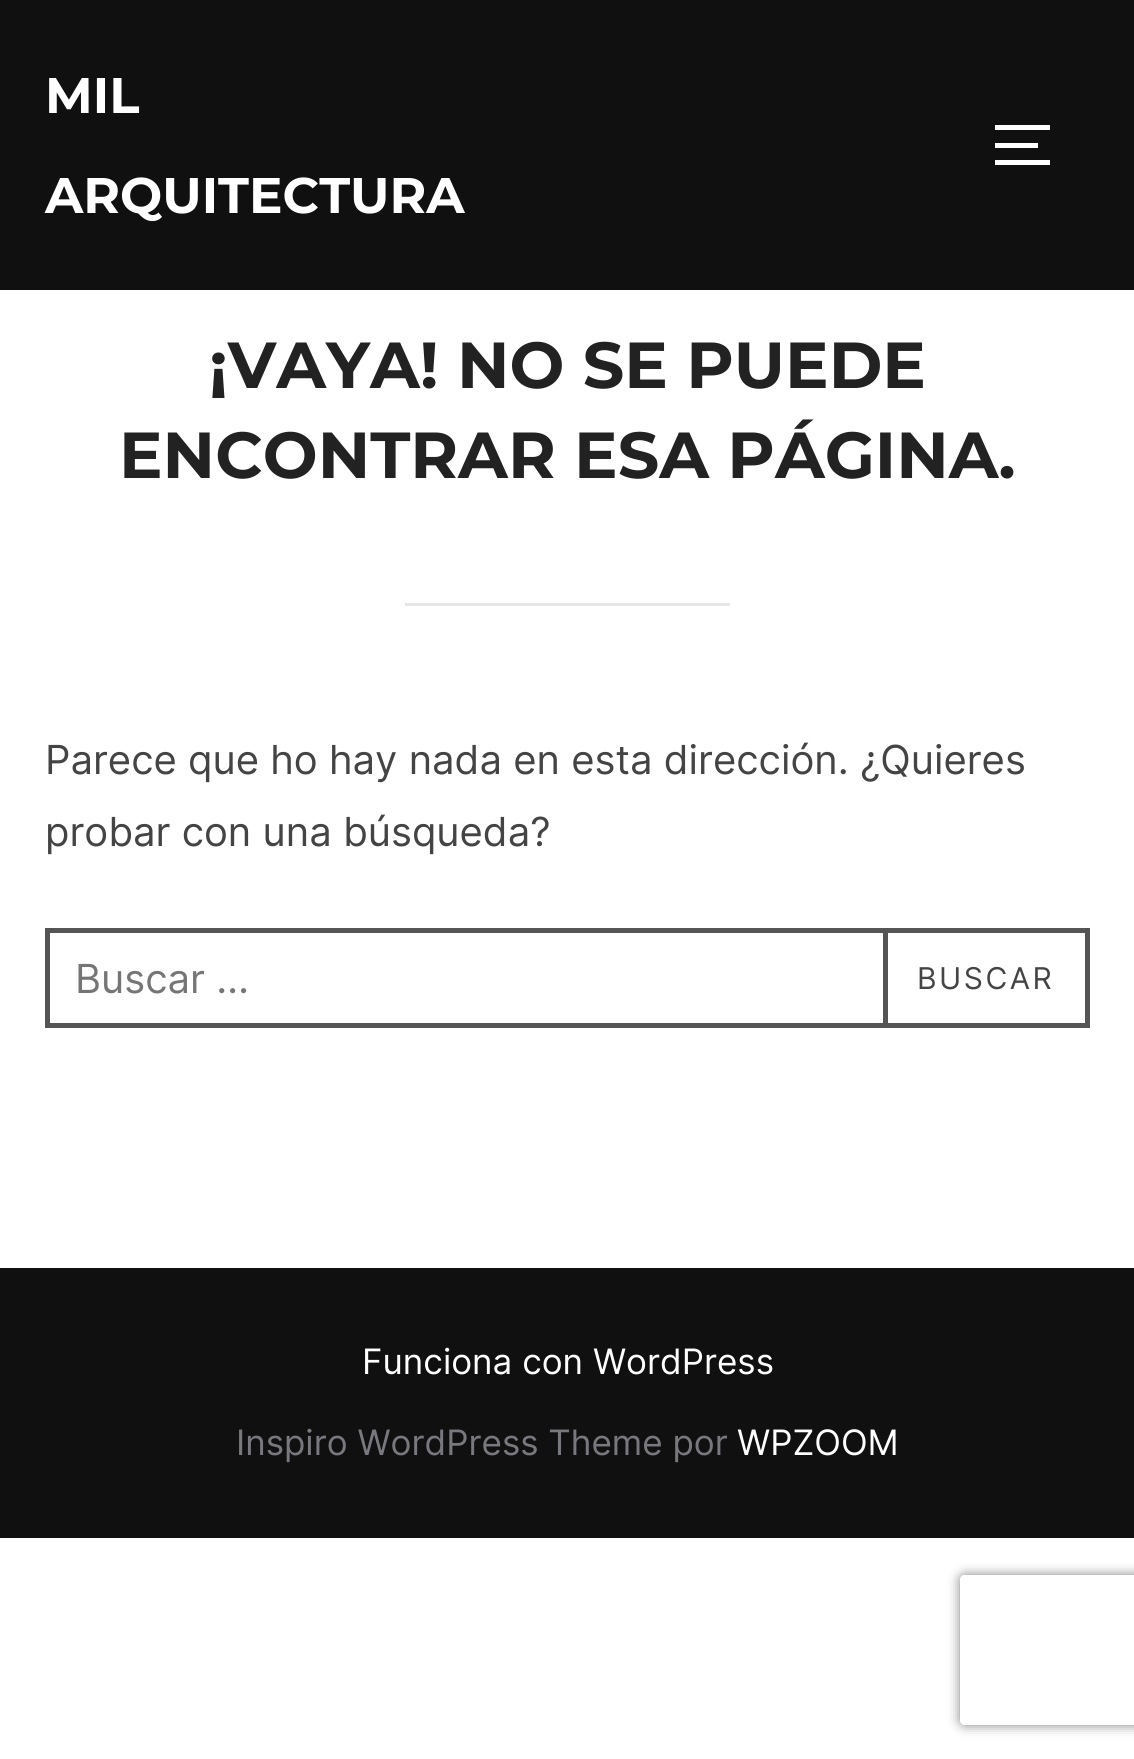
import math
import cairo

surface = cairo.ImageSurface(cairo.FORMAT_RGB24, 1134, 1759)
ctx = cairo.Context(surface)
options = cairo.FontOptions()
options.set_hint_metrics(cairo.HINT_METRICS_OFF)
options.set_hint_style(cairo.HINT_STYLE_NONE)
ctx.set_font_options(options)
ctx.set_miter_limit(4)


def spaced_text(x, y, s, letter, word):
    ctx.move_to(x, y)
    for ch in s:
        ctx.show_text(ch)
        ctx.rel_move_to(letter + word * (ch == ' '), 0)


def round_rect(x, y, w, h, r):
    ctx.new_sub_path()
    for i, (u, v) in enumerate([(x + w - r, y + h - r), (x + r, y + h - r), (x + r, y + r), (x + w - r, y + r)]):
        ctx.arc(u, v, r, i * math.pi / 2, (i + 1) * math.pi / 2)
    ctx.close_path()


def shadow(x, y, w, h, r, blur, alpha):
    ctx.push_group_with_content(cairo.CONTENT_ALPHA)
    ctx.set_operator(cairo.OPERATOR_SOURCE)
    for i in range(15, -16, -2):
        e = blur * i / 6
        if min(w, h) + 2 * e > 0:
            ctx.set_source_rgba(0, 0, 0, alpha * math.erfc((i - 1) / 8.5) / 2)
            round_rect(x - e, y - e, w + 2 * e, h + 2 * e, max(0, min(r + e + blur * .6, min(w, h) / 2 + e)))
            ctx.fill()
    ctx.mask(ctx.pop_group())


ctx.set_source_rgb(1, 1, 1)
ctx.paint()
ctx.set_source_rgb(0.063, 0.063, 0.063)
ctx.rectangle(0, 0, 1134, 290)
ctx.fill()
ctx.select_font_face("Montserrat", cairo.FONT_SLANT_NORMAL, cairo.FONT_WEIGHT_BOLD)
ctx.set_font_size(50)
ctx.set_source_rgb(1, 1, 1)
ctx.move_to(45, 113)
ctx.show_text("MIL")
ctx.move_to(45, 213)
ctx.show_text("ARQUITECTURA")
ctx.rectangle(995, 125, 55, 5)
ctx.fill()
ctx.rectangle(995, 143, 43, 5)
ctx.fill()
ctx.rectangle(995, 160, 55, 5)
ctx.fill()
ctx.set_font_size(65)
ctx.set_source_rgb(0.133, 0.133, 0.133)
ctx.move_to(209, 388)
ctx.show_text("¡VAYA! NO SE PUEDE")
ctx.move_to(119, 478)
ctx.show_text("ENCONTRAR ESA PÁGINA.")
ctx.set_source_rgb(0.902, 0.902, 0.902)
ctx.rectangle(405, 603, 325, 3)
ctx.fill()
ctx.select_font_face("Inter")
ctx.set_font_size(40)
ctx.set_source_rgb(0.267, 0.267, 0.267)
ctx.move_to(45, 774)
ctx.show_text("Parece que ho hay nada en esta dirección. ¿Quieres")
ctx.move_to(45, 846)
ctx.show_text("probar con una búsqueda?")
ctx.rectangle(47.5, 930.5, 1040, 95)
ctx.set_source_rgb(0.337, 0.333, 0.333)
ctx.set_line_width(5)
ctx.stroke()
ctx.set_source_rgb(0.459, 0.459, 0.459)
ctx.move_to(75, 993)
ctx.show_text("Buscar …")
ctx.rectangle(885.5, 930.5, 202, 95)
ctx.set_source_rgb(0.337, 0.333, 0.333)
ctx.stroke()
ctx.set_font_size(30)
ctx.set_source_rgb(0.267, 0.267, 0.267)
spaced_text(917, 989, "BUSCAR", 2.5, 0)
ctx.set_source_rgb(0.063, 0.063, 0.063)
ctx.rectangle(0, 1268, 1134, 270)
ctx.fill()
ctx.set_font_size(35)
ctx.set_source_rgb(1, 1, 1)
ctx.move_to(362, 1374)
ctx.show_text("Funciona con WordPress")
ctx.set_source_rgb(0.471, 0.471, 0.498)
ctx.move_to(236, 1455)
ctx.show_text("Inspiro WordPress Theme por")
ctx.set_source_rgb(1, 1, 1)
ctx.move_to(737, 1455)
ctx.show_text("WPZOOM")
ctx.save()
ctx.set_fill_rule(cairo.FILL_RULE_EVEN_ODD)
ctx.new_path()
ctx.move_to(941, 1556)
ctx.line_to(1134, 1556)
ctx.line_to(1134, 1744)
ctx.line_to(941, 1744)
ctx.close_path()
ctx.move_to(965, 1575)
ctx.line_to(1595, 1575)
ctx.curve_to(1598, 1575, 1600, 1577, 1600, 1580)
ctx.line_to(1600, 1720)
ctx.curve_to(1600, 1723, 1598, 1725, 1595, 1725)
ctx.line_to(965, 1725)
ctx.curve_to(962, 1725, 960, 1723, 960, 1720)
ctx.line_to(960, 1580)
ctx.curve_to(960, 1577, 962, 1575, 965, 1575)
ctx.close_path()
ctx.clip()
ctx.set_source_rgb(0.502, 0.502, 0.502)
shadow(960, 1575, 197, 150, 5, 6, 1)
ctx.restore()
surface.write_to_png("page.png")
